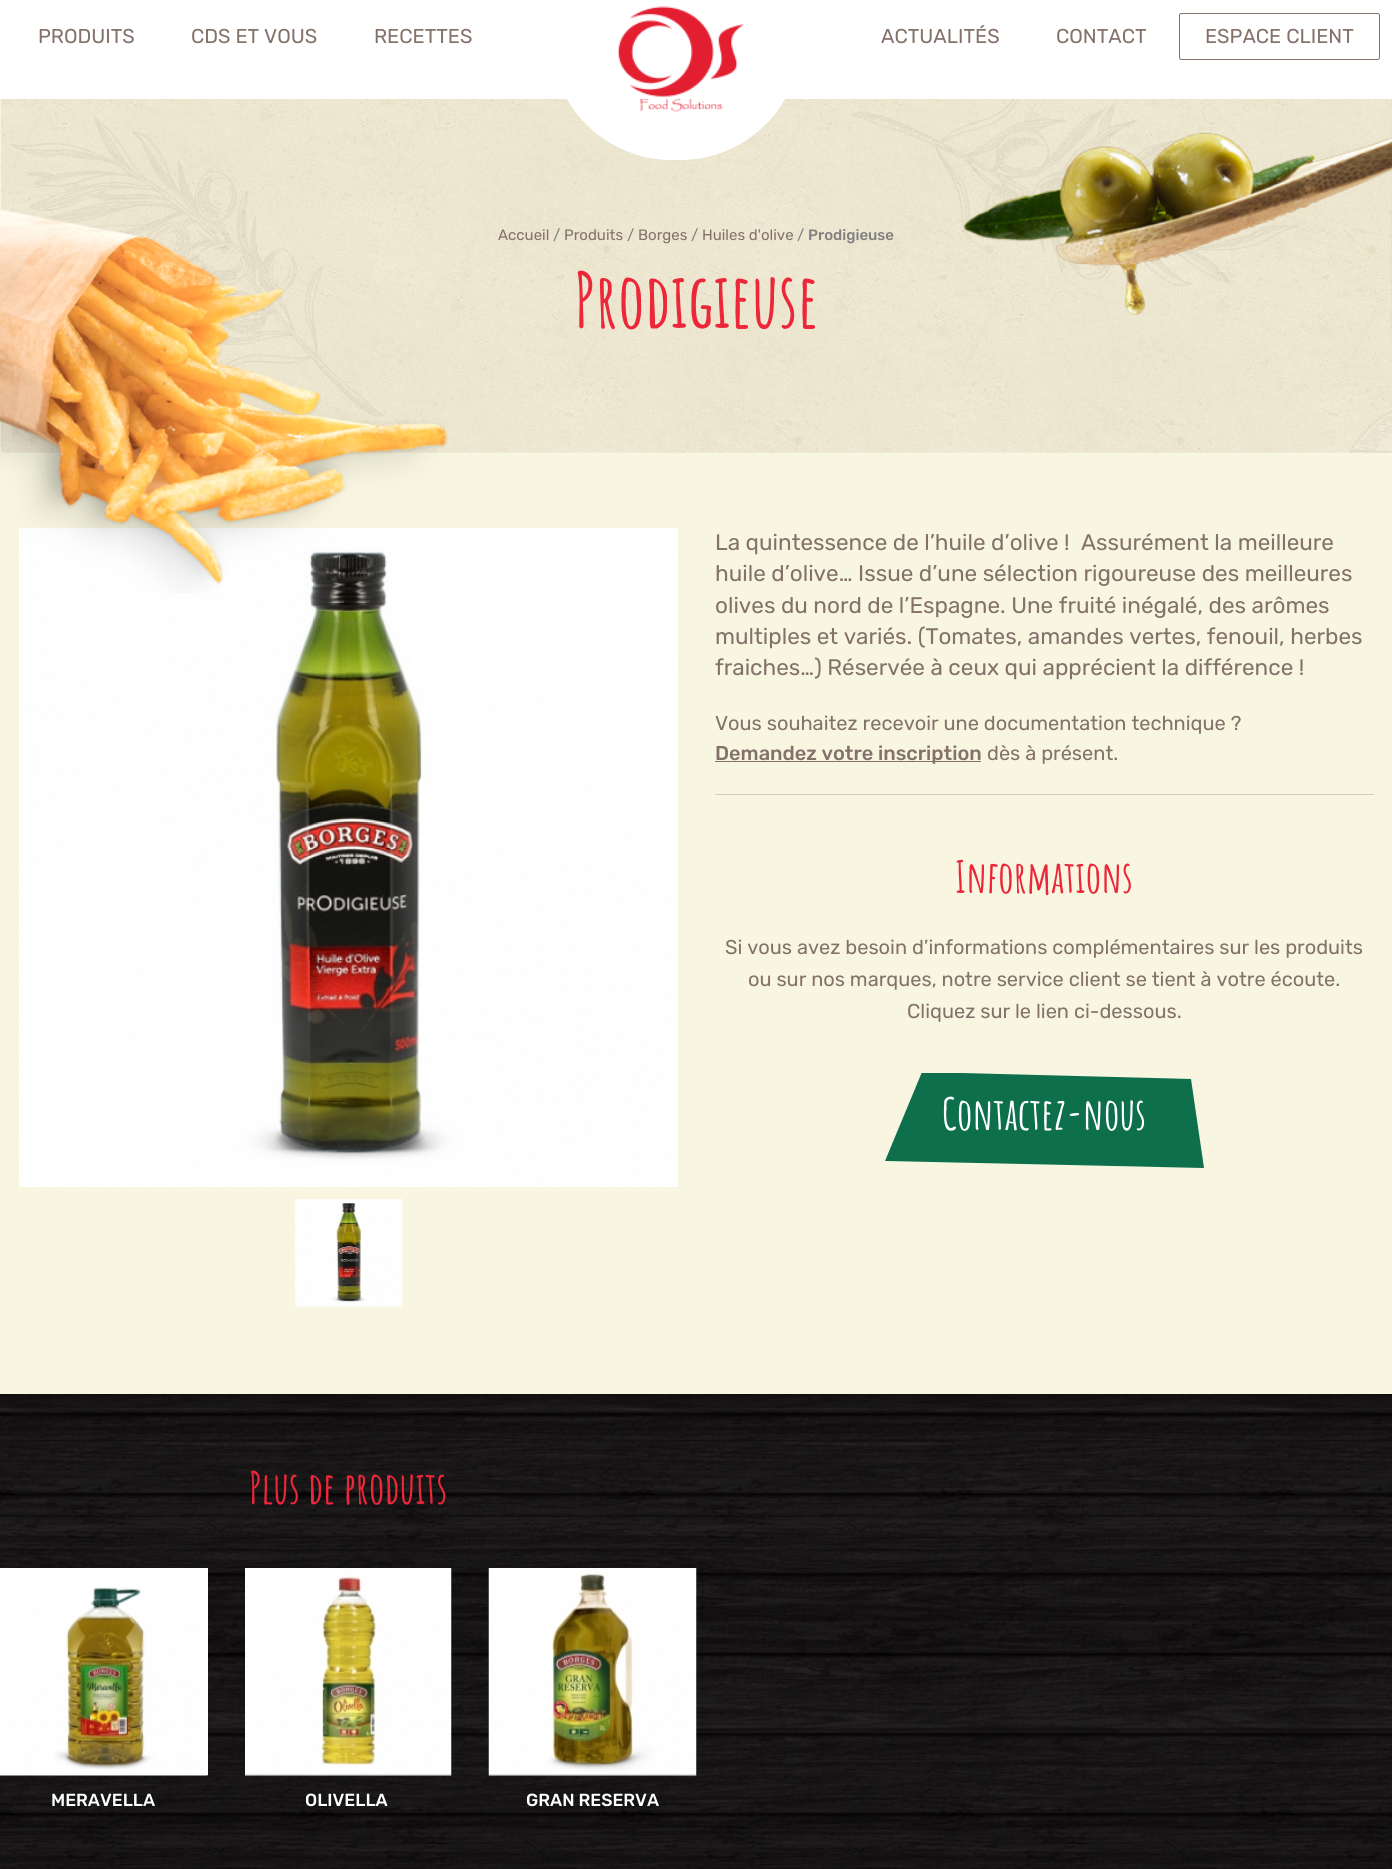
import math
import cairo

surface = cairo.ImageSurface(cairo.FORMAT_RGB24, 1392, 1869)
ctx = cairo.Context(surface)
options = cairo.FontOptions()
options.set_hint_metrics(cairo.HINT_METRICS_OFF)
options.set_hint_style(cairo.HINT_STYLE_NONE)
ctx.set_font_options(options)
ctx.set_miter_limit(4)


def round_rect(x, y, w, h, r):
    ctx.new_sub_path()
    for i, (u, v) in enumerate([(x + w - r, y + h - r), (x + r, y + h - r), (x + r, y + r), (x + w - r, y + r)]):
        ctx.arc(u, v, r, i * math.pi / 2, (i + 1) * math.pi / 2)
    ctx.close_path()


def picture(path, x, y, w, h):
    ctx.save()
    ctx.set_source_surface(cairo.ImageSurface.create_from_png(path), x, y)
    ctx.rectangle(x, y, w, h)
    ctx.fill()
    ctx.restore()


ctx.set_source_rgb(1, 1, 1)
ctx.paint()
ctx.select_font_face("Rubik")
ctx.set_font_size(20)
ctx.set_source_rgb(0.514, 0.443, 0.416)
ctx.move_to(38, 43)
ctx.show_text("PRODUITS")
ctx.move_to(191, 43)
ctx.show_text("CDS ET VOUS")
ctx.move_to(374, 43)
ctx.show_text("RECETTES")
picture("img2.png", 0, 99, 1392, 354)
ctx.set_source_rgb(1, 1, 1)
round_rect(551, -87, 250, 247, 121)
ctx.fill()
picture("img1.png", 617, 6, 127, 106)
ctx.set_source_rgb(0.514, 0.443, 0.416)
ctx.move_to(881, 43)
ctx.show_text("ACTUALITÉS")
ctx.move_to(1056, 43)
ctx.show_text("CONTACT")
round_rect(1179.5, 13.5, 200, 46, 2)
ctx.set_line_width(1)
ctx.stroke()
ctx.move_to(1205, 43)
ctx.show_text("ESPACE CLIENT")
ctx.set_source_rgb(0.969, 0.961, 0.882)
ctx.rectangle(0, 453, 1392, 941)
ctx.fill()
picture("img5.png", 19, 528, 659, 659)
picture("img3.png", 0, 209, 448, 384)
ctx.set_font_size(15)
ctx.set_source_rgb(0.514, 0.443, 0.416)
ctx.move_to(498, 240)
ctx.show_text("Accueil")
ctx.set_source_rgb(0.502, 0.502, 0.502)
ctx.move_to(553, 240)
ctx.show_text("/")
ctx.set_source_rgb(0.514, 0.443, 0.416)
ctx.move_to(564, 240)
ctx.show_text("Produits")
ctx.set_source_rgb(0.502, 0.502, 0.502)
ctx.move_to(627, 240)
ctx.show_text("/")
ctx.set_source_rgb(0.514, 0.443, 0.416)
ctx.move_to(638, 240)
ctx.show_text("Borges")
ctx.set_source_rgb(0.502, 0.502, 0.502)
ctx.move_to(691, 240)
ctx.show_text("/")
ctx.set_source_rgb(0.514, 0.443, 0.416)
ctx.move_to(702, 240)
ctx.show_text("Huiles d'olive")
ctx.set_source_rgb(0.502, 0.502, 0.502)
ctx.move_to(797, 240)
ctx.show_text("/")
ctx.select_font_face("Rubik Medium")
ctx.move_to(808, 240)
ctx.show_text("Prodigieuse")
picture("img4.png", 963, 99, 429, 242)
ctx.select_font_face("Amatic SC", cairo.FONT_SLANT_NORMAL, cairo.FONT_WEIGHT_BOLD)
ctx.set_font_size(75)
ctx.set_source_rgb(0.922, 0.153, 0.224)
ctx.move_to(574, 328)
ctx.show_text("Prodigieuse")
picture("img6.png", 294, 1199, 109, 108)
ctx.select_font_face("Rubik")
ctx.set_font_size(22.5)
ctx.set_source_rgb(0.514, 0.443, 0.416)
ctx.move_to(715, 550)
ctx.show_text("La quintessence de l’huile d’olive !")
ctx.move_to(1081, 550)
ctx.show_text("Assurément la meilleure")
ctx.move_to(715, 581)
ctx.show_text("huile d’olive… Issue d’une sélection rigoureuse des meilleures")
ctx.move_to(715, 613)
ctx.show_text("olives du nord de l’Espagne. Une fruité inégalé, des arômes")
ctx.move_to(715, 644)
ctx.show_text("multiples et variés. (Tomates, amandes vertes, fenouil, herbes")
ctx.move_to(715, 675)
ctx.show_text("fraiches…) Réservée à ceux qui apprécient la différence !")
ctx.set_font_size(20)
ctx.move_to(715, 730)
ctx.show_text("Vous souhaitez recevoir une documentation technique ?")
ctx.rectangle(715, 761, 266, 1)
ctx.fill()
ctx.select_font_face("Rubik Medium")
ctx.move_to(715, 760)
ctx.show_text("Demandez votre inscription")
ctx.select_font_face("Rubik")
ctx.move_to(987, 760)
ctx.show_text("dès à présent.")
ctx.set_source_rgb(0.831, 0.804, 0.741)
ctx.rectangle(715, 794, 659, 1)
ctx.fill()
ctx.select_font_face("Amatic SC", cairo.FONT_SLANT_NORMAL, cairo.FONT_WEIGHT_BOLD)
ctx.set_font_size(43.75)
ctx.set_source_rgb(0.922, 0.153, 0.224)
ctx.move_to(955, 893)
ctx.show_text("Informations")
ctx.select_font_face("Rubik")
ctx.set_font_size(20)
ctx.set_source_rgb(0.514, 0.443, 0.416)
ctx.move_to(725, 954)
ctx.show_text("Si vous avez besoin d’informations complémentaires sur les produits")
ctx.move_to(748, 986)
ctx.show_text("ou sur nos marques, notre service client se tient à votre écoute.")
ctx.move_to(907, 1018)
ctx.show_text("Cliquez sur le lien ci-dessous.")
ctx.save()
ctx.rectangle(885, 1073, 319, 95)
ctx.clip()
ctx.set_source_rgb(0.051, 0.435, 0.294)
ctx.new_path()
ctx.move_to(922, 1072)
ctx.line_to(885, 1161)
ctx.line_to(1204, 1168)
ctx.line_to(1191, 1079)
ctx.close_path()
ctx.fill()
ctx.restore()
ctx.select_font_face("Amatic SC", cairo.FONT_SLANT_NORMAL, cairo.FONT_WEIGHT_BOLD)
ctx.set_font_size(43.75)
ctx.set_source_rgb(1, 1, 1)
ctx.move_to(942, 1130)
ctx.show_text("Contactez-nous")
picture("img7.png", 0, 1394, 1392, 475)
ctx.set_source_rgb(0.922, 0.153, 0.224)
ctx.move_to(249, 1504)
ctx.show_text("Plus de produits")
ctx.set_source_rgb(1, 1, 1)
ctx.rectangle(0, 1568, 208, 207)
ctx.fill()
picture("img8.png", 0, 1587, 208, 189)
ctx.select_font_face("Rubik Medium")
ctx.set_font_size(17.5)
ctx.move_to(51, 1806)
ctx.show_text("MERAVELLA")
picture("img9.png", 245, 1568, 207, 208)
ctx.move_to(305, 1806)
ctx.show_text("OLIVELLA")
picture("img10.png", 488, 1568, 209, 208)
ctx.move_to(526, 1806)
ctx.show_text("GRAN RESERVA")
surface.write_to_png("page.png")
